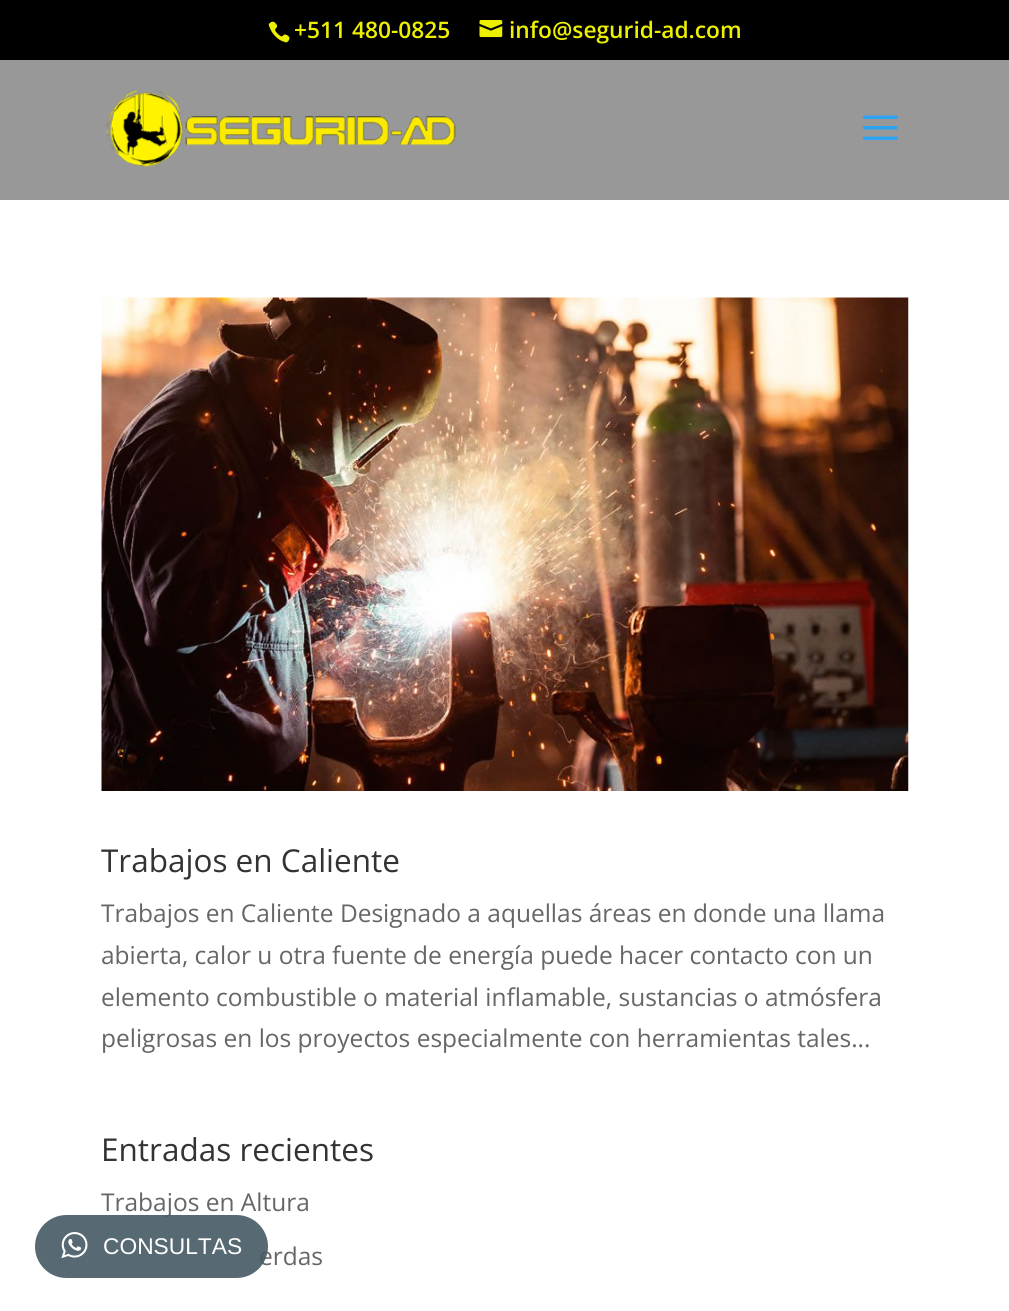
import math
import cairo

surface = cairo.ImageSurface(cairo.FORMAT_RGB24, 1009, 1311)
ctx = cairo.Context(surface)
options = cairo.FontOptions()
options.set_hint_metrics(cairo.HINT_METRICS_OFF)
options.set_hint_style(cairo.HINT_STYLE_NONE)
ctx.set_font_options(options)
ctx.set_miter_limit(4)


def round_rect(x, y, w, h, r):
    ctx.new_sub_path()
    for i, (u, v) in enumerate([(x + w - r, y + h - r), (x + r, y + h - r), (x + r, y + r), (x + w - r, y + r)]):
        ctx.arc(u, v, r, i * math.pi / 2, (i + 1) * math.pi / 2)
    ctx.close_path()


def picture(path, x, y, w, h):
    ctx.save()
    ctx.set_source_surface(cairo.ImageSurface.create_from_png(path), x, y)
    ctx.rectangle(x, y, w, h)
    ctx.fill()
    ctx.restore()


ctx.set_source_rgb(1, 1, 1)
ctx.paint()
ctx.set_source_rgb(0, 0, 0)
ctx.rectangle(0, 0, 1009, 60)
ctx.fill()
picture("img1.png", 268, 21, 22, 22)
ctx.select_font_face("Open Sans SemiBold")
ctx.set_font_size(22.75)
ctx.set_source_rgb(0.929, 0.941, 0)
ctx.move_to(294, 38)
ctx.show_text("+511 480-0825")
picture("img2.png", 479, 20, 24, 18)
ctx.move_to(509, 38)
ctx.show_text("info@segurid-ad.com")
ctx.set_source_rgb(0.596, 0.596, 0.596)
ctx.rectangle(0, 60, 1009, 140)
ctx.fill()
picture("img3.png", 106, 90, 350, 77)
picture("img4.png", 862, 115, 36, 25)
picture("img5.png", 101, 297, 808, 494)
ctx.select_font_face("Open Sans")
ctx.set_font_size(31.5)
ctx.set_source_rgb(0.2, 0.2, 0.2)
ctx.move_to(101, 872)
ctx.show_text("Trabajos en Caliente")
ctx.set_font_size(24.5)
ctx.set_source_rgb(0.4, 0.4, 0.4)
ctx.move_to(101, 922)
ctx.show_text("Trabajos en Caliente Designado a aquellas áreas en donde una llama")
ctx.move_to(101, 964)
ctx.show_text("abierta, calor u otra fuente de energía puede hacer contacto con un")
ctx.move_to(101, 1006)
ctx.show_text("elemento combustible o material inflamable, sustancias o atmósfera")
ctx.move_to(101, 1047)
ctx.show_text("peligrosas en los proyectos especialmente con herramientas tales...")
ctx.set_font_size(31.5)
ctx.set_source_rgb(0.2, 0.2, 0.2)
ctx.move_to(101, 1161)
ctx.show_text("Entradas recientes")
ctx.set_font_size(24.5)
ctx.set_source_rgb(0.4, 0.4, 0.4)
ctx.move_to(101, 1211)
ctx.show_text("Trabajos en Altura")
ctx.move_to(259, 1265)
ctx.show_text("erdas")
ctx.set_source_rgba(0.271, 0.353, 0.392, 0.9)
round_rect(35, 1215, 233, 63, 31.5)
ctx.fill()
picture("img6.png", 61, 1232, 27, 26)
ctx.select_font_face("Liberation Sans")
ctx.set_font_size(22.75)
ctx.set_source_rgb(1, 1, 1)
ctx.move_to(103, 1254)
ctx.show_text("CONSULTAS")
surface.write_to_png("page.png")
